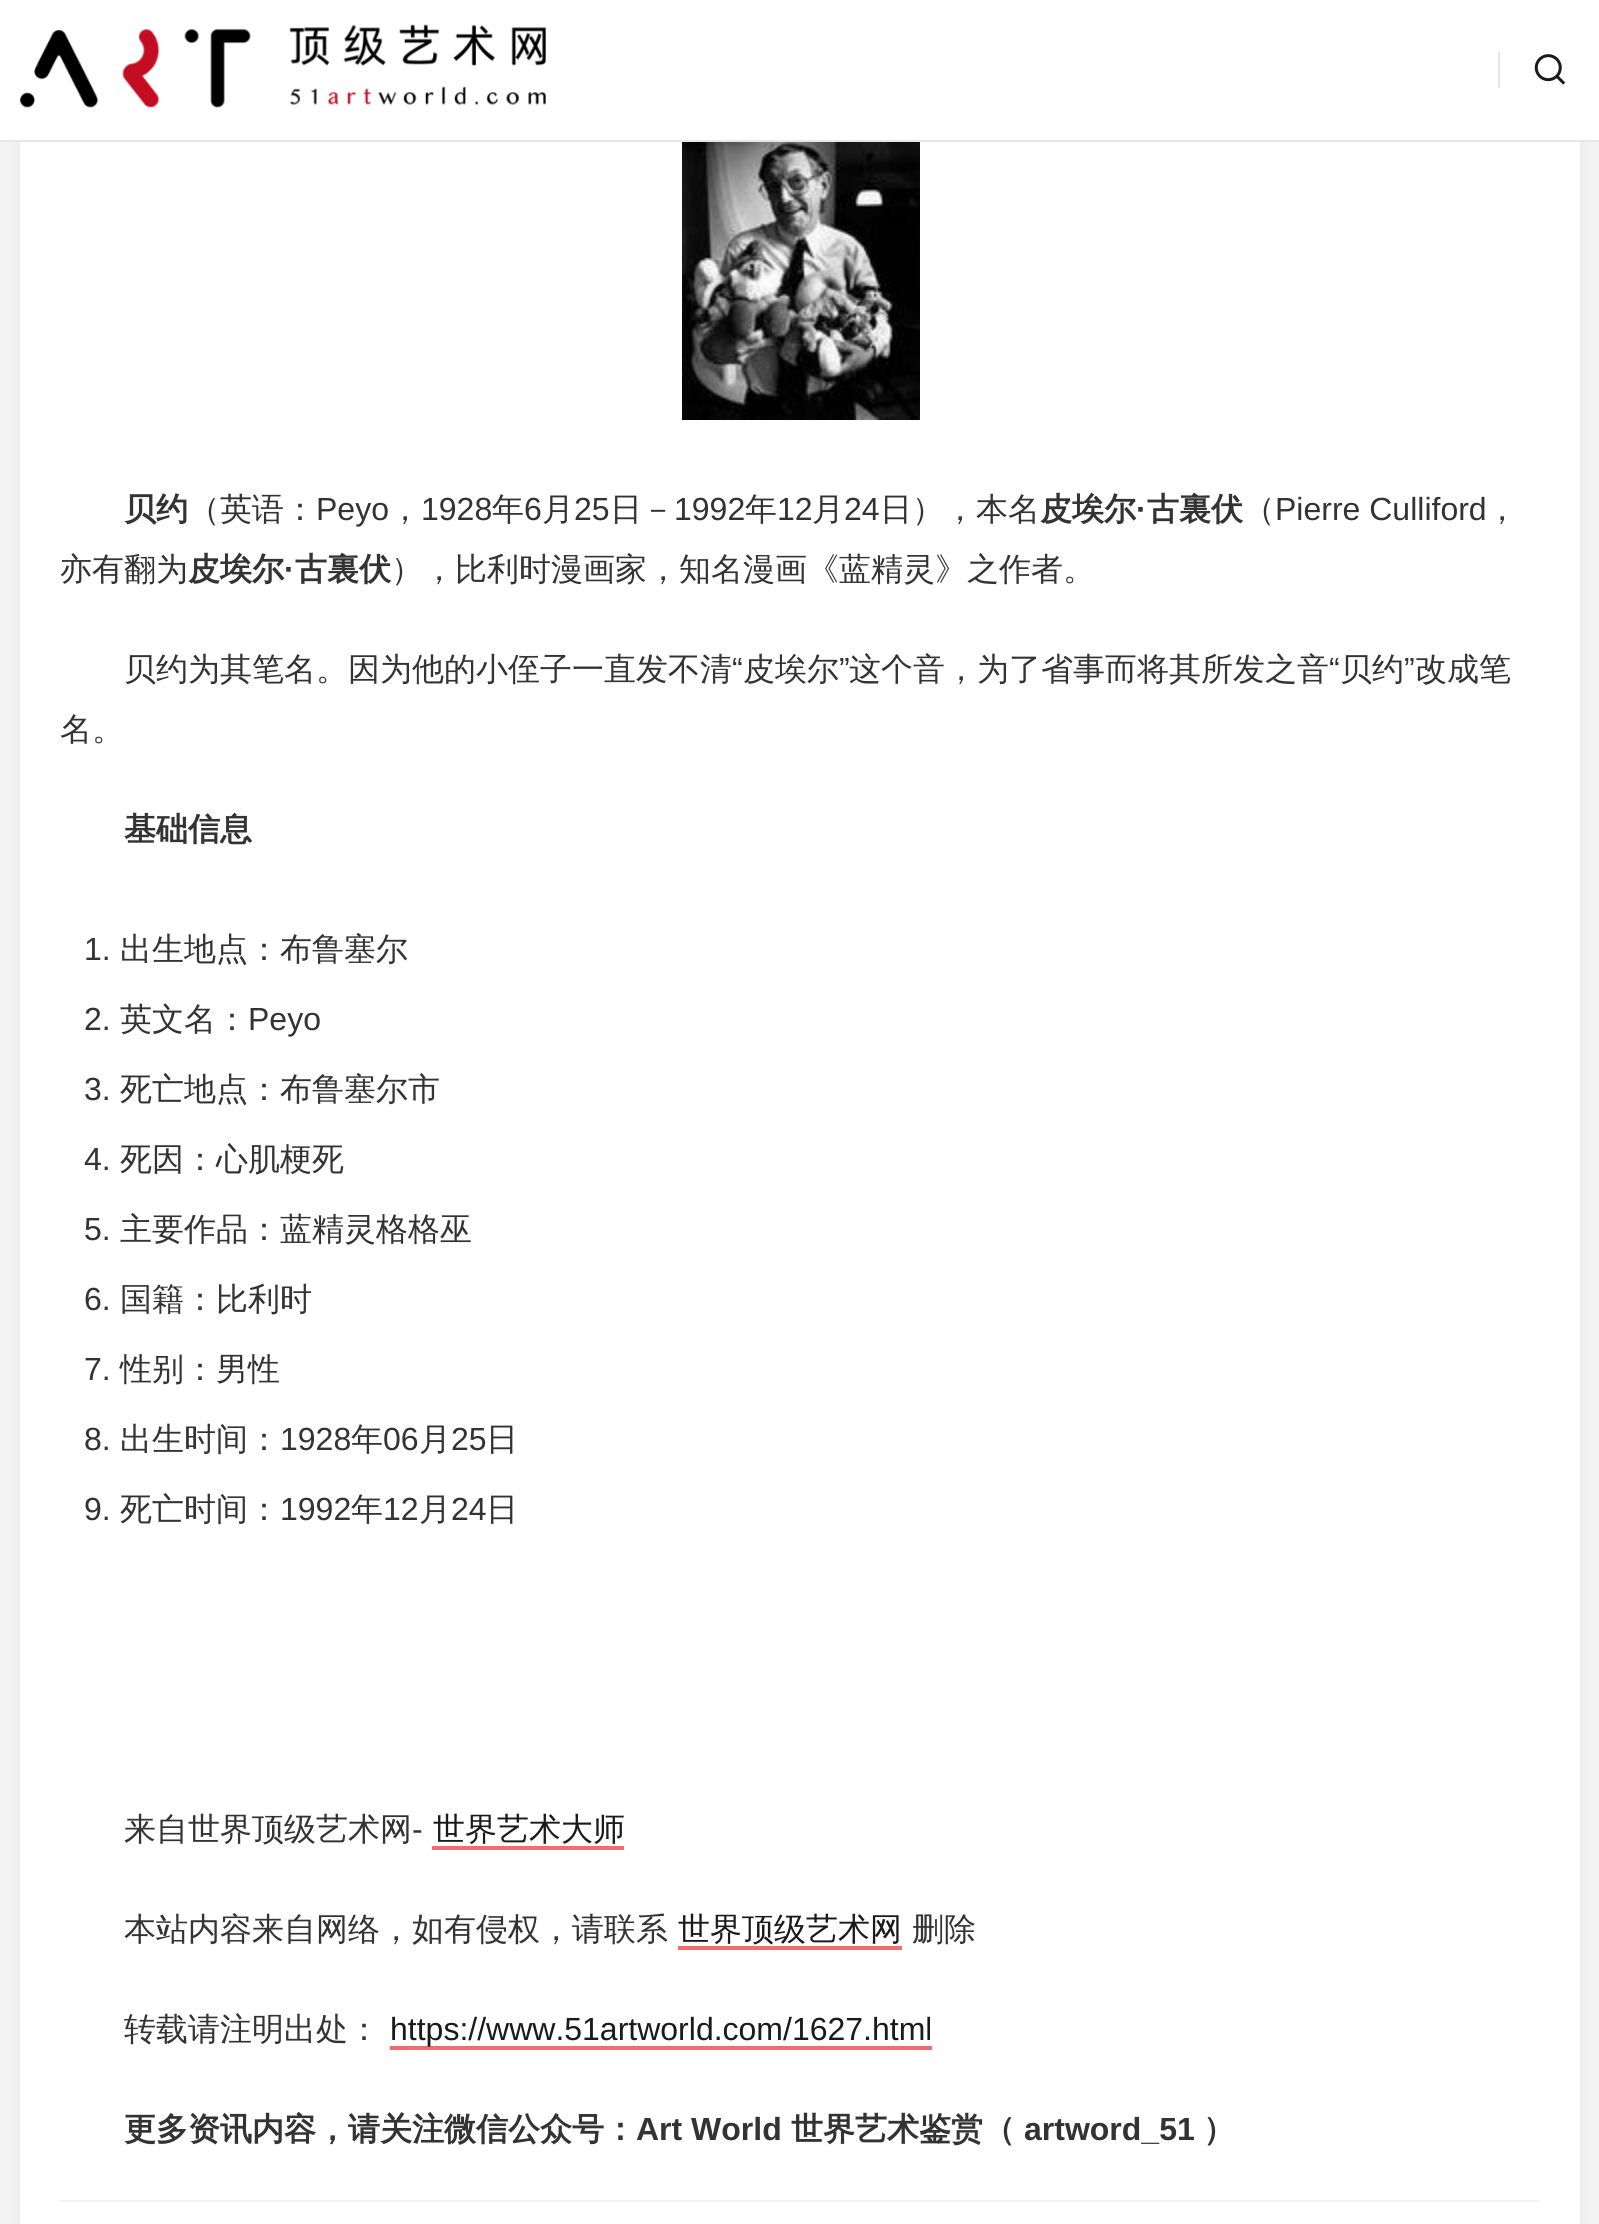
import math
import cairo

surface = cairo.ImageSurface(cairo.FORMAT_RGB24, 1599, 2224)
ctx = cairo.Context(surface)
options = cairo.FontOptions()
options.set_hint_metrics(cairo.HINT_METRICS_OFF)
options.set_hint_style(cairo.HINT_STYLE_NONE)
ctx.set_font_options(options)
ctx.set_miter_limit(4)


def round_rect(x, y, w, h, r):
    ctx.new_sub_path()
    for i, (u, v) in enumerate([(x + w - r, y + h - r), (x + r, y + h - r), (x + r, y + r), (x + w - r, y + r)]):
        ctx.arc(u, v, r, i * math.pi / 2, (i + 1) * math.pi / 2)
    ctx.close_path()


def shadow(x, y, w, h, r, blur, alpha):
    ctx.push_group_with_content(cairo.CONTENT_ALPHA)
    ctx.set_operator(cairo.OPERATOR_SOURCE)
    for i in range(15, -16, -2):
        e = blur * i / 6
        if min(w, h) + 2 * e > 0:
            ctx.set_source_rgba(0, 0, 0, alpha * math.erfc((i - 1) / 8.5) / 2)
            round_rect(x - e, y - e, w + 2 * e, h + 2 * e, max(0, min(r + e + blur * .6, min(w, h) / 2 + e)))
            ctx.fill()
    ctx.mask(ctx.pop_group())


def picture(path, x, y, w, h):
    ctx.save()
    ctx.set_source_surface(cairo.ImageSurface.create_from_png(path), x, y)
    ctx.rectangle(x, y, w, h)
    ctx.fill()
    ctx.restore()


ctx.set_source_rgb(0.957, 0.957, 0.957)
ctx.paint()
ctx.set_source_rgb(0, 0, 0)
shadow(20, -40, 1560, 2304, 10, 10, 0.05)
ctx.set_source_rgb(1, 1, 1)
ctx.rectangle(0, 0, 1599, 140)
ctx.fill()
ctx.set_source_rgb(0.902, 0.902, 0.902)
ctx.rectangle(0, 140, 1599, 2)
ctx.fill()
picture("img1.png", 20, 24, 526, 84)
ctx.rectangle(1498, 52, 2, 36)
ctx.fill()
picture("img2.png", 1534, 54, 32, 31)
ctx.set_source_rgb(1, 1, 1)
ctx.rectangle(20, 142, 1560, 2082)
ctx.fill()
picture("img3.png", 682, 142, 238, 278)
ctx.select_font_face("WenQuanYi Zen Hei", cairo.FONT_SLANT_NORMAL, cairo.FONT_WEIGHT_BOLD)
ctx.set_font_size(32)
ctx.set_source_rgb(0.2, 0.2, 0.2)
ctx.move_to(124, 520)
ctx.show_text("贝约")
ctx.select_font_face("WenQuanYi Zen Hei Medium")
ctx.move_to(188, 520)
ctx.show_text("（英语：")
ctx.select_font_face("Liberation Sans")
ctx.move_to(316, 520)
ctx.show_text("Peyo")
ctx.move_to(421, 520)
ctx.show_text("1928")
ctx.select_font_face("WenQuanYi Zen Hei Medium")
ctx.move_to(492, 520)
ctx.show_text("年")
ctx.select_font_face("Liberation Sans")
ctx.move_to(524, 520)
ctx.show_text("6")
ctx.select_font_face("WenQuanYi Zen Hei Medium")
ctx.move_to(542, 520)
ctx.show_text("月")
ctx.select_font_face("Liberation Sans")
ctx.move_to(574, 520)
ctx.show_text("25")
ctx.select_font_face("WenQuanYi Zen Hei Medium")
ctx.move_to(610, 520)
ctx.show_text("日－")
ctx.select_font_face("Liberation Sans")
ctx.move_to(674, 520)
ctx.show_text("1992")
ctx.select_font_face("WenQuanYi Zen Hei Medium")
ctx.move_to(745, 520)
ctx.show_text("年")
ctx.select_font_face("Liberation Sans")
ctx.move_to(777, 520)
ctx.show_text("12")
ctx.select_font_face("WenQuanYi Zen Hei Medium")
ctx.move_to(812, 520)
ctx.show_text("月")
ctx.select_font_face("Liberation Sans")
ctx.move_to(844, 520)
ctx.show_text("24")
ctx.select_font_face("WenQuanYi Zen Hei Medium")
ctx.move_to(880, 520)
ctx.show_text("日），本名")
ctx.select_font_face("WenQuanYi Zen Hei", cairo.FONT_SLANT_NORMAL, cairo.FONT_WEIGHT_BOLD)
ctx.move_to(1040, 520)
ctx.show_text("皮埃尔")
ctx.select_font_face("Liberation Sans", cairo.FONT_SLANT_NORMAL, cairo.FONT_WEIGHT_BOLD)
ctx.move_to(1136, 520)
ctx.show_text("·")
ctx.select_font_face("WenQuanYi Zen Hei", cairo.FONT_SLANT_NORMAL, cairo.FONT_WEIGHT_BOLD)
ctx.move_to(1147, 520)
ctx.show_text("古裏伏")
ctx.select_font_face("WenQuanYi Zen Hei Medium")
ctx.move_to(1243, 520)
ctx.show_text("（")
ctx.select_font_face("Liberation Sans")
ctx.move_to(1275, 520)
ctx.show_text("Pierre Culliford")
ctx.select_font_face("WenQuanYi Zen Hei Medium")
ctx.move_to(389, 520)
ctx.show_text("，")
ctx.move_to(1486, 520)
ctx.show_text("，")
ctx.move_to(60, 580)
ctx.show_text("亦有翻为")
ctx.select_font_face("WenQuanYi Zen Hei", cairo.FONT_SLANT_NORMAL, cairo.FONT_WEIGHT_BOLD)
ctx.move_to(188, 580)
ctx.show_text("皮埃尔")
ctx.select_font_face("Liberation Sans", cairo.FONT_SLANT_NORMAL, cairo.FONT_WEIGHT_BOLD)
ctx.move_to(284, 580)
ctx.show_text("·")
ctx.select_font_face("WenQuanYi Zen Hei", cairo.FONT_SLANT_NORMAL, cairo.FONT_WEIGHT_BOLD)
ctx.move_to(295, 580)
ctx.show_text("古裏伏")
ctx.select_font_face("WenQuanYi Zen Hei Medium")
ctx.move_to(391, 580)
ctx.show_text("），比利时漫画家，知名漫画《蓝精灵》之作者。")
ctx.move_to(124, 680)
ctx.show_text("贝约为其笔名。因为他的小侄子一直发不清")
ctx.select_font_face("Liberation Sans")
ctx.move_to(732, 680)
ctx.show_text("“")
ctx.select_font_face("WenQuanYi Zen Hei Medium")
ctx.move_to(743, 680)
ctx.show_text("皮埃尔")
ctx.select_font_face("Liberation Sans")
ctx.move_to(839, 680)
ctx.show_text("”")
ctx.select_font_face("WenQuanYi Zen Hei Medium")
ctx.move_to(849, 680)
ctx.show_text("这个音，为了省事而将其所发之音")
ctx.select_font_face("Liberation Sans")
ctx.move_to(1329, 680)
ctx.show_text("“")
ctx.select_font_face("WenQuanYi Zen Hei Medium")
ctx.move_to(1340, 680)
ctx.show_text("贝约")
ctx.select_font_face("Liberation Sans")
ctx.move_to(1404, 680)
ctx.show_text("”")
ctx.select_font_face("WenQuanYi Zen Hei Medium")
ctx.move_to(1415, 680)
ctx.show_text("改成笔")
ctx.move_to(60, 740)
ctx.show_text("名。")
ctx.select_font_face("WenQuanYi Zen Hei", cairo.FONT_SLANT_NORMAL, cairo.FONT_WEIGHT_BOLD)
ctx.move_to(124, 840)
ctx.show_text("基础信息")
ctx.select_font_face("Liberation Sans")
ctx.move_to(84, 960)
ctx.show_text("1.")
ctx.select_font_face("WenQuanYi Zen Hei Medium")
ctx.move_to(120, 960)
ctx.show_text("出生地点：布鲁塞尔")
ctx.select_font_face("Liberation Sans")
ctx.move_to(84, 1030)
ctx.show_text("2.")
ctx.select_font_face("WenQuanYi Zen Hei Medium")
ctx.move_to(120, 1030)
ctx.show_text("英文名：")
ctx.select_font_face("Liberation Sans")
ctx.move_to(248, 1030)
ctx.show_text("Peyo")
ctx.move_to(84, 1100)
ctx.show_text("3.")
ctx.select_font_face("WenQuanYi Zen Hei Medium")
ctx.move_to(120, 1100)
ctx.show_text("死亡地点：布鲁塞尔市")
ctx.select_font_face("Liberation Sans")
ctx.move_to(84, 1170)
ctx.show_text("4.")
ctx.select_font_face("WenQuanYi Zen Hei Medium")
ctx.move_to(120, 1170)
ctx.show_text("死因：心肌梗死")
ctx.select_font_face("Liberation Sans")
ctx.move_to(84, 1240)
ctx.show_text("5.")
ctx.select_font_face("WenQuanYi Zen Hei Medium")
ctx.move_to(120, 1240)
ctx.show_text("主要作品：蓝精灵格格巫")
ctx.select_font_face("Liberation Sans")
ctx.move_to(84, 1310)
ctx.show_text("6.")
ctx.select_font_face("WenQuanYi Zen Hei Medium")
ctx.move_to(120, 1310)
ctx.show_text("国籍：比利时")
ctx.select_font_face("Liberation Sans")
ctx.move_to(84, 1380)
ctx.show_text("7.")
ctx.select_font_face("WenQuanYi Zen Hei Medium")
ctx.move_to(120, 1380)
ctx.show_text("性别：男性")
ctx.select_font_face("Liberation Sans")
ctx.move_to(84, 1450)
ctx.show_text("8.")
ctx.select_font_face("WenQuanYi Zen Hei Medium")
ctx.move_to(120, 1450)
ctx.show_text("出生时间：")
ctx.select_font_face("Liberation Sans")
ctx.move_to(280, 1450)
ctx.show_text("1928")
ctx.select_font_face("WenQuanYi Zen Hei Medium")
ctx.move_to(351, 1450)
ctx.show_text("年")
ctx.select_font_face("Liberation Sans")
ctx.move_to(383, 1450)
ctx.show_text("06")
ctx.select_font_face("WenQuanYi Zen Hei Medium")
ctx.move_to(419, 1450)
ctx.show_text("月")
ctx.select_font_face("Liberation Sans")
ctx.move_to(451, 1450)
ctx.show_text("25")
ctx.select_font_face("WenQuanYi Zen Hei Medium")
ctx.move_to(486, 1450)
ctx.show_text("日")
ctx.select_font_face("Liberation Sans")
ctx.move_to(84, 1520)
ctx.show_text("9.")
ctx.select_font_face("WenQuanYi Zen Hei Medium")
ctx.move_to(120, 1520)
ctx.show_text("死亡时间：")
ctx.select_font_face("Liberation Sans")
ctx.move_to(280, 1520)
ctx.show_text("1992")
ctx.select_font_face("WenQuanYi Zen Hei Medium")
ctx.move_to(351, 1520)
ctx.show_text("年")
ctx.select_font_face("Liberation Sans")
ctx.move_to(383, 1520)
ctx.show_text("12")
ctx.select_font_face("WenQuanYi Zen Hei Medium")
ctx.move_to(419, 1520)
ctx.show_text("月")
ctx.select_font_face("Liberation Sans")
ctx.move_to(451, 1520)
ctx.show_text("24")
ctx.select_font_face("WenQuanYi Zen Hei Medium")
ctx.move_to(486, 1520)
ctx.show_text("日")
ctx.move_to(124, 1840)
ctx.show_text("来自世界顶级艺术网")
ctx.select_font_face("Liberation Sans")
ctx.move_to(412, 1840)
ctx.show_text("-")
ctx.select_font_face("WenQuanYi Zen Hei Medium")
ctx.set_source_rgb(0.102, 0.102, 0.102)
ctx.move_to(433, 1840)
ctx.show_text("世界艺术大师")
ctx.set_source_rgb(0.945, 0.42, 0.435)
ctx.rectangle(432, 1846, 192, 4)
ctx.fill()
ctx.set_source_rgb(0.2, 0.2, 0.2)
ctx.move_to(124, 1940)
ctx.show_text("本站内容来自网络，如有侵权，请联系")
ctx.set_source_rgb(0.102, 0.102, 0.102)
ctx.move_to(678, 1940)
ctx.show_text("世界顶级艺术网")
ctx.set_source_rgb(0.945, 0.42, 0.435)
ctx.rectangle(678, 1946, 224, 4)
ctx.fill()
ctx.set_source_rgb(0.2, 0.2, 0.2)
ctx.move_to(912, 1940)
ctx.show_text("删除")
ctx.move_to(124, 2040)
ctx.show_text("转载请注明出处：")
ctx.set_source_rgb(0.945, 0.42, 0.435)
ctx.rectangle(390, 2046, 542, 4)
ctx.fill()
ctx.select_font_face("Liberation Sans")
ctx.set_source_rgb(0.102, 0.102, 0.102)
ctx.move_to(390, 2040)
ctx.show_text("https://www.51artworld.com/1627.html")
ctx.select_font_face("WenQuanYi Zen Hei", cairo.FONT_SLANT_NORMAL, cairo.FONT_WEIGHT_BOLD)
ctx.set_source_rgb(0.2, 0.2, 0.2)
ctx.move_to(124, 2140)
ctx.show_text("更多资讯内容，请关注微信公众号：")
ctx.select_font_face("Liberation Sans", cairo.FONT_SLANT_NORMAL, cairo.FONT_WEIGHT_BOLD)
ctx.move_to(636, 2140)
ctx.show_text("Art World")
ctx.select_font_face("WenQuanYi Zen Hei", cairo.FONT_SLANT_NORMAL, cairo.FONT_WEIGHT_BOLD)
ctx.move_to(791, 2140)
ctx.show_text("世界艺术鉴赏（")
ctx.select_font_face("Liberation Sans", cairo.FONT_SLANT_NORMAL, cairo.FONT_WEIGHT_BOLD)
ctx.move_to(1024, 2140)
ctx.show_text("artword_51")
ctx.select_font_face("WenQuanYi Zen Hei", cairo.FONT_SLANT_NORMAL, cairo.FONT_WEIGHT_BOLD)
ctx.move_to(1203, 2140)
ctx.show_text("）")
ctx.set_source_rgb(0.957, 0.957, 0.957)
ctx.rectangle(60, 2200, 1480, 2)
ctx.fill()
surface.write_to_png("page.png")
